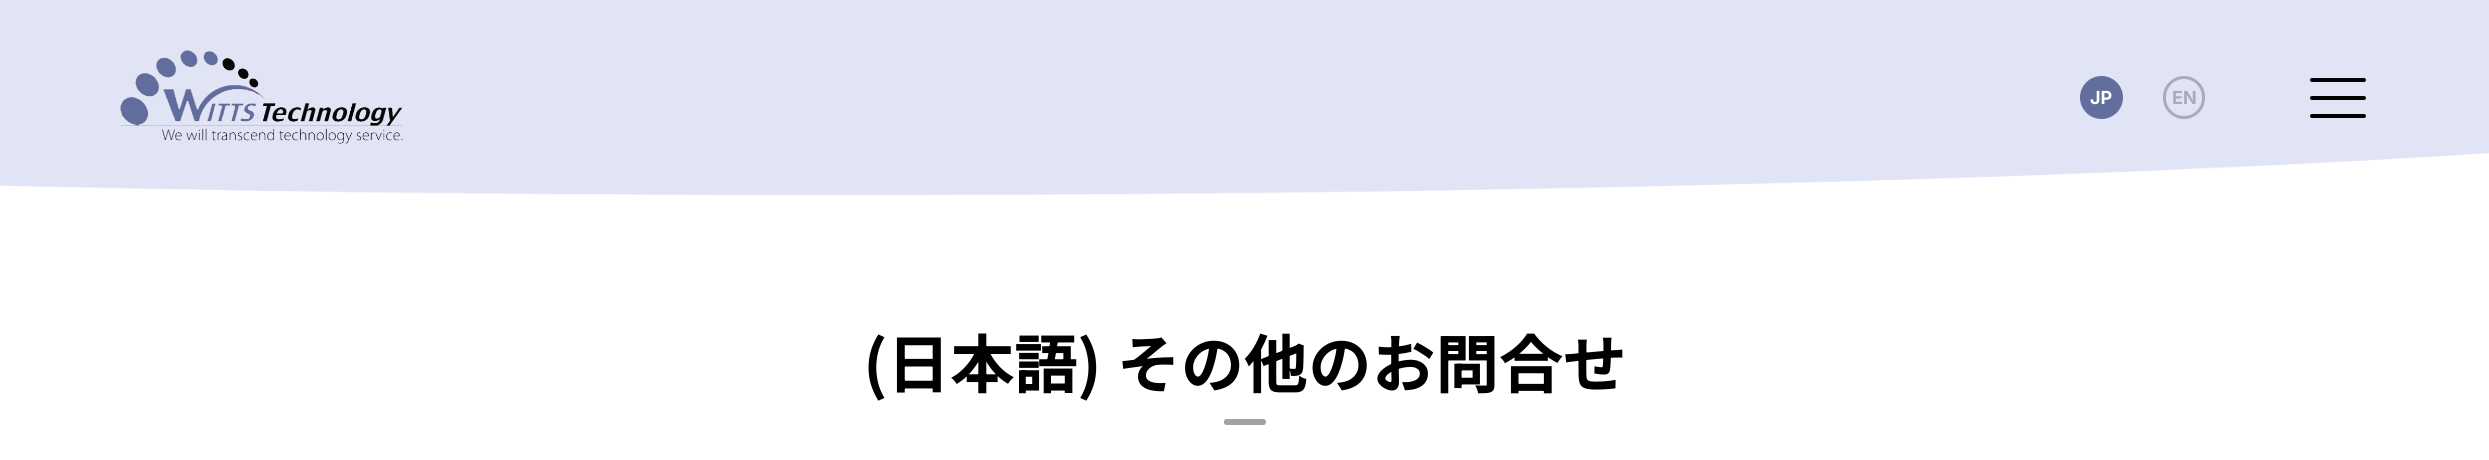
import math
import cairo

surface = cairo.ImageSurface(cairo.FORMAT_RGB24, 2489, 460)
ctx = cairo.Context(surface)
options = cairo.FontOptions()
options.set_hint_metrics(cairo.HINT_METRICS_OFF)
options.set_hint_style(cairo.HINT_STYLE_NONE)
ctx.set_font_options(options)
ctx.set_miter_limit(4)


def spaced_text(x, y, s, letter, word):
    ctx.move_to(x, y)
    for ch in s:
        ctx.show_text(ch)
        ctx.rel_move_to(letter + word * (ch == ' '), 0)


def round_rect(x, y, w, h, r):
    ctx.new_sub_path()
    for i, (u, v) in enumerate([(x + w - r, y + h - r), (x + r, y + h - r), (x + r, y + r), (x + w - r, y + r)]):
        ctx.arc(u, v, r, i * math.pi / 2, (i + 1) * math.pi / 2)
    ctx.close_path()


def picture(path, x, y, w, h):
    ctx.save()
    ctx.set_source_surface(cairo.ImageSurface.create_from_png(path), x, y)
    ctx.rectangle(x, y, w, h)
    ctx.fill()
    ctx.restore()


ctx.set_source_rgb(1, 1, 1)
ctx.paint()
picture("img1.png", 0, 0, 2489, 195)
picture("img2.png", 120, 50, 283, 94)
ctx.set_source_rgb(0.384, 0.431, 0.62)
ctx.arc(2101.5, 97.5, 20, 0, 2 * math.pi)
ctx.fill_preserve()
ctx.set_line_width(3)
ctx.stroke()
ctx.select_font_face("Inter", cairo.FONT_SLANT_NORMAL, cairo.FONT_WEIGHT_BOLD)
ctx.set_font_size(18)
ctx.set_source_rgb(1, 1, 1)
ctx.move_to(2090, 104)
ctx.show_text("JP")
round_rect(2164.5, 77.5, 39, 40, 19.5)
ctx.set_source_rgb(0.659, 0.671, 0.722)
ctx.stroke()
ctx.move_to(2172, 104)
ctx.show_text("EN")
ctx.set_source_rgb(0, 0, 0)
round_rect(2310, 78, 56, 4, 2)
ctx.fill()
round_rect(2310, 96, 56, 4, 2)
ctx.fill()
round_rect(2310, 114, 56, 4, 2)
ctx.fill()
ctx.select_font_face("Noto Sans JP", cairo.FONT_SLANT_NORMAL, cairo.FONT_WEIGHT_BOLD)
ctx.set_font_size(62.5)
spaced_text(863, 388, "(日本語) その他のお問合せ", 1.25, 0)
ctx.set_source_rgb(0.635, 0.635, 0.635)
round_rect(1224, 419, 42, 6, 2.5)
ctx.fill()
surface.write_to_png("page.png")
